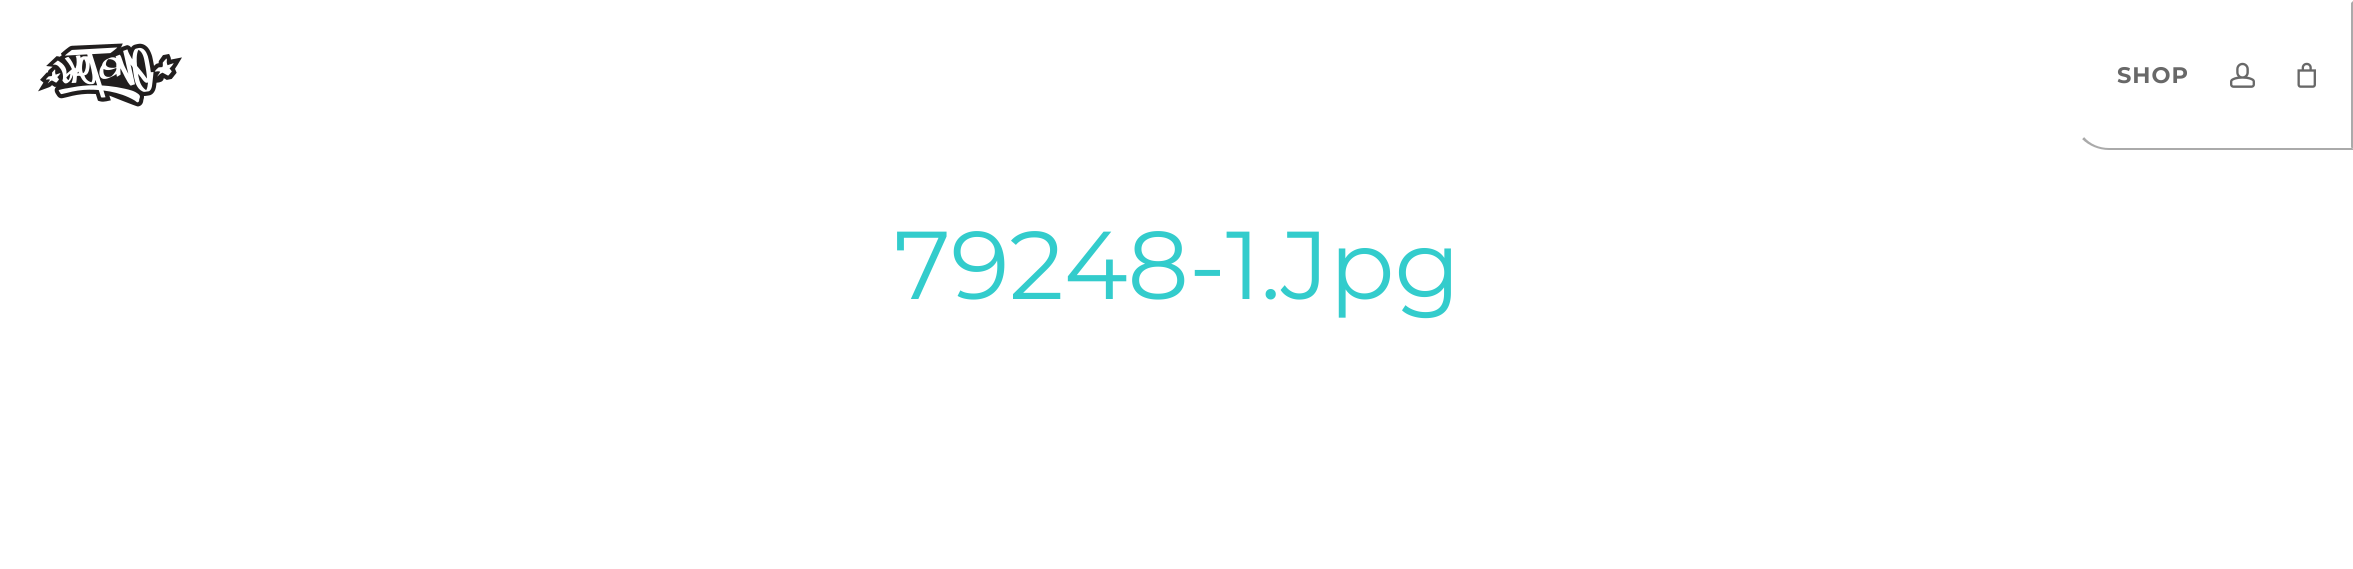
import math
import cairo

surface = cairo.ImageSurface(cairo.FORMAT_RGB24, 2353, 569)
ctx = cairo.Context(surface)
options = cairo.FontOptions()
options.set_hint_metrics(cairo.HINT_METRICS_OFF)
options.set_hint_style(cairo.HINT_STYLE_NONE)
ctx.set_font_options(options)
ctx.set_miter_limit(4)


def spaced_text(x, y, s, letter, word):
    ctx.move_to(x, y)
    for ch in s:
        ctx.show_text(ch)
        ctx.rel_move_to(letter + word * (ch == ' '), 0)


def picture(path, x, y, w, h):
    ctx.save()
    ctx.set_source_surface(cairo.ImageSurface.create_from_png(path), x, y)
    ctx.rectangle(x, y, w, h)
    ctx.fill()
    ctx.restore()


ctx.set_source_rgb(1, 1, 1)
ctx.paint()
picture("img1.png", 38, 43, 144, 64)
ctx.set_source_rgb(0.667, 0.667, 0.667)
ctx.new_path()
ctx.move_to(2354, 0)
ctx.line_to(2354, 150)
ctx.line_to(2351, 147)
ctx.line_to(2351, 3)
ctx.close_path()
ctx.fill()
ctx.new_path()
ctx.move_to(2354, 150)
ctx.line_to(2351, 147)
ctx.line_to(2351, 148)
ctx.line_to(2109, 148)
ctx.curve_to(2099, 148, 2090, 144, 2084, 137)
ctx.line_to(2082, 139)
ctx.curve_to(2089, 146, 2099, 150, 2109, 150)
ctx.close_path()
ctx.fill()
ctx.set_source_rgb(1, 1, 1)
ctx.new_path()
ctx.move_to(2082, 139)
ctx.curve_to(2076, 133, 2072, 125, 2071, 116)
ctx.line_to(2071, 0)
ctx.line_to(2074, 3)
ctx.line_to(2074, 112)
ctx.curve_to(2074, 122, 2078, 131, 2084, 137)
ctx.close_path()
ctx.fill()
ctx.select_font_face("Montserrat", cairo.FONT_SLANT_NORMAL, cairo.FONT_WEIGHT_BOLD)
ctx.set_font_size(22.5)
ctx.set_source_rgb(0.408, 0.408, 0.408)
spaced_text(2117, 83, "SHOP", 1, 0)
picture("img2.png", 2230, 62, 25, 26)
picture("img3.png", 2297, 62, 19, 26)
ctx.select_font_face("Montserrat")
ctx.set_font_size(96.25)
ctx.set_source_rgb(0.2, 0.8, 0.8)
ctx.move_to(894, 299)
ctx.show_text("79248-1.Jpg")
surface.write_to_png("page.png")
